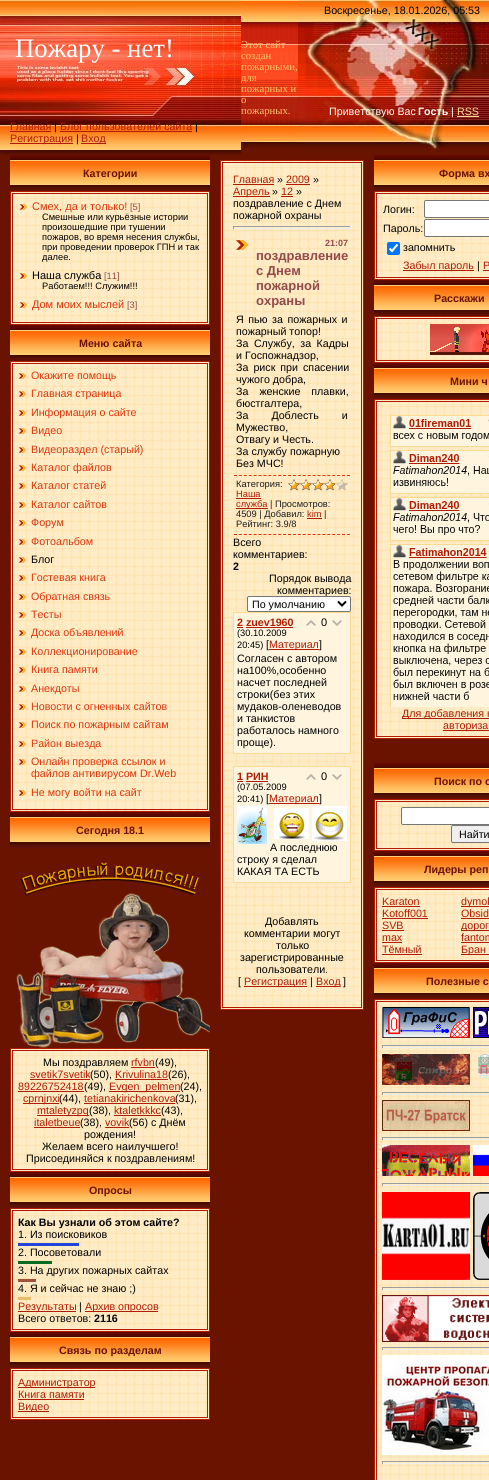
import math
import cairo

surface = cairo.ImageSurface(cairo.FORMAT_RGB24, 489, 1480)
ctx = cairo.Context(surface)
options = cairo.FontOptions()
options.set_hint_metrics(cairo.HINT_METRICS_OFF)
options.set_hint_style(cairo.HINT_STYLE_NONE)
ctx.set_font_options(options)
ctx.set_miter_limit(4)


def spaced_text(x, y, s, letter, word):
    ctx.move_to(x, y)
    for ch in s:
        ctx.show_text(ch)
        ctx.rel_move_to(letter + word * (ch == ' '), 0)


def round_rect(x, y, w, h, r):
    ctx.new_sub_path()
    for i, (u, v) in enumerate([(x + w - r, y + h - r), (x + r, y + h - r), (x + r, y + r), (x + w - r, y + r)]):
        ctx.arc(u, v, r, i * math.pi / 2, (i + 1) * math.pi / 2)
    ctx.close_path()


def picture(path, x, y, w, h):
    ctx.save()
    ctx.set_source_surface(cairo.ImageSurface.create_from_png(path), x, y)
    ctx.rectangle(x, y, w, h)
    ctx.fill()
    ctx.restore()


ctx.set_source_rgb(0.412, 0.078, 0)
ctx.paint()
picture("img1.png", 241, 0, 57, 155)
picture("img2.png", 0, 0, 241, 155)
ctx.select_font_face("Liberation Serif")
ctx.set_font_size(26.75)
ctx.set_source_rgb(1, 1, 1)
ctx.move_to(15, 57)
ctx.show_text("Пожару - нет!")
ctx.select_font_face("Liberation Sans")
ctx.set_font_size(10.7)
ctx.set_source_rgb(0.698, 0.106, 0.016)
ctx.move_to(10, 130)
ctx.show_text("Главная")
ctx.rectangle(10, 131, 41, 1)
ctx.fill()
ctx.set_source_rgb(0, 0, 0)
ctx.move_to(54, 130)
ctx.show_text("|")
ctx.set_source_rgb(0.698, 0.106, 0.016)
ctx.move_to(60, 130)
ctx.show_text("Блог пользователей сайта")
ctx.rectangle(60, 131, 132, 1)
ctx.fill()
ctx.set_source_rgb(0, 0, 0)
ctx.move_to(195, 130)
ctx.show_text("|")
ctx.set_source_rgb(0.698, 0.106, 0.016)
ctx.rectangle(10, 143, 63, 1)
ctx.fill()
ctx.move_to(10, 142)
ctx.show_text("Регистрация")
ctx.set_source_rgb(0, 0, 0)
ctx.move_to(76, 142)
ctx.show_text("|")
ctx.set_source_rgb(0.698, 0.106, 0.016)
ctx.rectangle(81, 143, 25, 1)
ctx.fill()
ctx.move_to(81, 142)
ctx.show_text("Вход")
ctx.select_font_face("Liberation Serif")
ctx.set_source_rgb(0.996, 0.769, 0.408)
ctx.move_to(241, 48)
ctx.show_text("Этот сайт")
ctx.move_to(241, 59)
ctx.show_text("создан")
ctx.move_to(241, 70)
ctx.show_text("пожарными,")
ctx.move_to(241, 81)
ctx.show_text("для")
ctx.move_to(241, 92)
ctx.show_text("пожарных и")
ctx.move_to(241, 103)
ctx.show_text("о")
ctx.move_to(241, 114)
ctx.show_text("пожарных.")
picture("img3.png", 298, 0, 191, 155)
ctx.select_font_face("Liberation Sans")
ctx.set_source_rgb(0, 0, 0)
ctx.move_to(324, 14)
ctx.show_text("Воскресенье, 18.01.2026, 05:53")
ctx.set_source_rgb(1, 1, 1)
ctx.move_to(329, 115)
ctx.show_text("Приветствую Вас")
ctx.select_font_face("Liberation Sans", cairo.FONT_SLANT_NORMAL, cairo.FONT_WEIGHT_BOLD)
ctx.move_to(418, 115)
ctx.show_text("Гость")
ctx.select_font_face("Liberation Sans")
ctx.move_to(451, 115)
ctx.show_text("|")
ctx.set_source_rgb(1, 0.863, 0.6)
ctx.move_to(457, 115)
ctx.show_text("RSS")
ctx.rectangle(457, 116, 22, 1)
ctx.fill()
picture("img4.png", 10, 155, 200, 36)
ctx.select_font_face("Liberation Sans", cairo.FONT_SLANT_NORMAL, cairo.FONT_WEIGHT_BOLD)
ctx.set_source_rgb(0.412, 0.078, 0)
ctx.move_to(83, 177)
ctx.show_text("Категории")
picture("img5.png", 11, 192, 198, 132)
ctx.rectangle(10.5, 191.5, 199, 133)
ctx.set_source_rgb(0.698, 0.106, 0.016)
ctx.set_line_width(1)
ctx.stroke()
ctx.rectangle(12.5, 193.5, 195, 129)
ctx.stroke()
picture("img6.png", 19, 203, 8, 8)
ctx.select_font_face("Liberation Sans")
ctx.set_font_size(11)
ctx.set_source_rgb(0.863, 0.216, 0.051)
ctx.move_to(32, 210)
ctx.show_text("Смех, да и только!")
ctx.set_font_size(9.3)
ctx.set_source_rgb(0.576, 0.29, 0.29)
ctx.move_to(130, 210)
ctx.show_text("[5]")
ctx.set_source_rgb(0, 0, 0)
ctx.move_to(42, 220)
ctx.show_text("Смешные или курьёзные истории")
ctx.move_to(42, 230)
ctx.show_text("произошедшие при тушении")
ctx.move_to(42, 240)
ctx.show_text("пожаров, во время несения службы,")
ctx.move_to(42, 250)
ctx.show_text("при проведении проверок ГПН и так")
ctx.move_to(42, 260)
ctx.show_text("далее.")
picture("img6.png", 19, 272, 8, 8)
ctx.set_font_size(11)
ctx.move_to(32, 279)
ctx.show_text("Наша служба")
ctx.set_font_size(9.3)
ctx.set_source_rgb(0.576, 0.29, 0.29)
ctx.move_to(104, 279)
ctx.show_text("[11]")
ctx.set_source_rgb(0, 0, 0)
ctx.move_to(42, 289)
ctx.show_text("Работаем!!! Служим!!!")
picture("img6.png", 19, 301, 8, 8)
ctx.set_font_size(11)
ctx.set_source_rgb(0.863, 0.216, 0.051)
ctx.move_to(32, 308)
ctx.show_text("Дом моих мыслей")
ctx.set_font_size(9.3)
ctx.set_source_rgb(0.576, 0.29, 0.29)
ctx.move_to(127, 308)
ctx.show_text("[3]")
picture("img4.png", 10, 325, 200, 36)
ctx.select_font_face("Liberation Sans", cairo.FONT_SLANT_NORMAL, cairo.FONT_WEIGHT_BOLD)
ctx.set_font_size(10.7)
ctx.set_source_rgb(0.412, 0.078, 0)
ctx.move_to(79, 347)
ctx.show_text("Меню сайта")
picture("img7.png", 11, 362, 198, 449)
ctx.rectangle(10.5, 361.5, 199, 450)
ctx.set_source_rgb(0.698, 0.106, 0.016)
ctx.stroke()
ctx.rectangle(12.5, 363.5, 195, 446)
ctx.stroke()
picture("img8.png", 18, 373, 8, 6)
ctx.select_font_face("Liberation Sans")
ctx.set_source_rgb(0.863, 0.216, 0.051)
ctx.move_to(31, 379)
ctx.show_text("Окажите помощь")
picture("img8.png", 18, 391, 8, 6)
ctx.move_to(31, 397)
ctx.show_text("Главная страница")
picture("img8.png", 18, 410, 8, 6)
ctx.move_to(31, 416)
ctx.show_text("Информация о сайте")
picture("img8.png", 18, 428, 8, 6)
ctx.move_to(31, 434)
ctx.show_text("Видео")
picture("img8.png", 18, 447, 8, 6)
ctx.move_to(31, 453)
ctx.show_text("Видеораздел (старый)")
picture("img8.png", 18, 465, 8, 6)
ctx.move_to(31, 471)
ctx.show_text("Каталог файлов")
picture("img8.png", 18, 483, 8, 6)
ctx.move_to(31, 489)
ctx.show_text("Каталог статей")
picture("img8.png", 18, 502, 8, 6)
ctx.move_to(31, 508)
ctx.show_text("Каталог сайтов")
picture("img8.png", 18, 520, 8, 6)
ctx.move_to(31, 526)
ctx.show_text("Форум")
picture("img9.png", 18, 538, 8, 7)
ctx.move_to(31, 545)
ctx.show_text("Фотоальбом")
picture("img9.png", 18, 556, 8, 7)
ctx.set_source_rgb(0, 0, 0)
ctx.move_to(31, 563)
ctx.show_text("Блог")
picture("img9.png", 18, 574, 8, 7)
ctx.set_source_rgb(0.863, 0.216, 0.051)
ctx.move_to(31, 581)
ctx.show_text("Гостевая книга")
picture("img9.png", 18, 593, 8, 7)
ctx.move_to(31, 600)
ctx.show_text("Обратная связь")
picture("img9.png", 18, 611, 8, 7)
ctx.move_to(31, 618)
ctx.show_text("Тесты")
picture("img9.png", 18, 629, 8, 7)
ctx.move_to(31, 636)
ctx.show_text("Доска объявлений")
picture("img6.png", 18, 648, 8, 8)
ctx.move_to(31, 655)
ctx.show_text("Коллекционирование")
picture("img6.png", 18, 666, 8, 8)
ctx.move_to(31, 673)
ctx.show_text("Книга памяти")
picture("img10.png", 18, 686, 8, 7)
ctx.move_to(31, 692)
ctx.show_text("Анекдоты")
picture("img10.png", 18, 704, 8, 7)
ctx.move_to(31, 710)
ctx.show_text("Новости с огненных сайтов")
picture("img10.png", 18, 722, 8, 7)
ctx.move_to(31, 728)
ctx.show_text("Поиск по пожарным сайтам")
picture("img10.png", 18, 741, 8, 7)
ctx.move_to(31, 747)
ctx.show_text("Район выезда")
picture("img10.png", 18, 759, 8, 7)
ctx.move_to(31, 765)
ctx.show_text("Онлайн проверка ссылок и")
ctx.move_to(31, 777)
ctx.show_text("файлов антивирусом Dr.Web")
picture("img8.png", 18, 790, 8, 6)
ctx.move_to(31, 796)
ctx.show_text("Не могу войти на сайт")
picture("img4.png", 10, 812, 200, 36)
ctx.select_font_face("Liberation Sans", cairo.FONT_SLANT_NORMAL, cairo.FONT_WEIGHT_BOLD)
ctx.set_source_rgb(0.412, 0.078, 0)
ctx.move_to(76, 834)
ctx.show_text("Сегодня 18.1")
picture("img11.png", 16, 862, 194, 186)
picture("img12.png", 11, 1049, 198, 122)
ctx.rectangle(10.5, 1048.5, 199, 123)
ctx.set_source_rgb(0.698, 0.106, 0.016)
ctx.stroke()
ctx.rectangle(12.5, 1050.5, 195, 119)
ctx.stroke()
ctx.select_font_face("Liberation Sans")
ctx.set_source_rgb(0, 0, 0)
ctx.move_to(43, 1066)
ctx.show_text("Мы поздравляем")
ctx.set_source_rgb(0.698, 0.106, 0.016)
ctx.move_to(131, 1066)
ctx.show_text("rfvbn")
ctx.rectangle(131, 1067, 24, 1)
ctx.fill()
ctx.set_source_rgb(0, 0, 0)
ctx.move_to(155, 1066)
ctx.show_text("(49),")
ctx.set_source_rgb(0.698, 0.106, 0.016)
ctx.move_to(30, 1078)
ctx.show_text("svetik7svetik")
ctx.rectangle(30, 1079, 60, 1)
ctx.fill()
ctx.set_source_rgb(0, 0, 0)
ctx.move_to(90, 1078)
ctx.show_text("(50),")
ctx.set_source_rgb(0.698, 0.106, 0.016)
ctx.move_to(115, 1078)
ctx.show_text("Krivulina18")
ctx.rectangle(115, 1079, 53, 1)
ctx.fill()
ctx.set_source_rgb(0, 0, 0)
ctx.move_to(168, 1078)
ctx.show_text("(26),")
ctx.set_source_rgb(0.698, 0.106, 0.016)
ctx.move_to(18, 1090)
ctx.show_text("89226752418")
ctx.rectangle(18, 1091, 66, 1)
ctx.fill()
ctx.set_source_rgb(0, 0, 0)
ctx.move_to(84, 1090)
ctx.show_text("(49),")
ctx.set_source_rgb(0.698, 0.106, 0.016)
ctx.rectangle(109, 1091, 71, 1)
ctx.fill()
ctx.move_to(109, 1090)
ctx.show_text("Evgen_pelmen")
ctx.set_source_rgb(0, 0, 0)
ctx.move_to(180, 1090)
ctx.show_text("(24),")
ctx.set_source_rgb(0.698, 0.106, 0.016)
ctx.rectangle(23, 1103, 36, 1)
ctx.fill()
ctx.move_to(23, 1102)
ctx.show_text("cprnjnxi")
ctx.set_source_rgb(0, 0, 0)
ctx.move_to(59, 1102)
ctx.show_text("(44),")
ctx.set_source_rgb(0.698, 0.106, 0.016)
ctx.move_to(84, 1102)
ctx.show_text("tetianakirichenkova")
ctx.rectangle(84, 1103, 91, 1)
ctx.fill()
ctx.set_source_rgb(0, 0, 0)
ctx.move_to(175, 1102)
ctx.show_text("(31),")
ctx.set_source_rgb(0.698, 0.106, 0.016)
ctx.rectangle(37, 1115, 52, 1)
ctx.fill()
ctx.move_to(37, 1114)
ctx.show_text("mtaletyzpq")
ctx.set_source_rgb(0, 0, 0)
ctx.move_to(89, 1114)
ctx.show_text("(38),")
ctx.set_source_rgb(0.698, 0.106, 0.016)
ctx.move_to(114, 1114)
ctx.show_text("ktaletkkkc")
ctx.rectangle(114, 1115, 47, 1)
ctx.fill()
ctx.set_source_rgb(0, 0, 0)
ctx.move_to(161, 1114)
ctx.show_text("(43),")
ctx.set_source_rgb(0.698, 0.106, 0.016)
ctx.move_to(34, 1126)
ctx.show_text("italetbeue")
ctx.rectangle(34, 1127, 46, 1)
ctx.fill()
ctx.set_source_rgb(0, 0, 0)
ctx.move_to(80, 1126)
ctx.show_text("(38),")
ctx.set_source_rgb(0.698, 0.106, 0.016)
ctx.move_to(105, 1126)
ctx.show_text("vovik")
ctx.rectangle(105, 1127, 24, 1)
ctx.fill()
ctx.set_source_rgb(0, 0, 0)
ctx.move_to(129, 1126)
ctx.show_text("(56) с Днём")
ctx.move_to(84, 1138)
ctx.show_text("рождения!")
ctx.move_to(42, 1150)
ctx.show_text("Желаем всего наилучшего!")
ctx.move_to(26, 1162)
ctx.show_text("Присоединяйся к поздравлениям!")
picture("img4.png", 10, 1172, 200, 36)
ctx.select_font_face("Liberation Sans", cairo.FONT_SLANT_NORMAL, cairo.FONT_WEIGHT_BOLD)
ctx.set_source_rgb(0.412, 0.078, 0)
ctx.move_to(89, 1194)
ctx.show_text("Опросы")
picture("img12.png", 11, 1209, 198, 122)
ctx.rectangle(10.5, 1208.5, 199, 123)
ctx.set_source_rgb(0.698, 0.106, 0.016)
ctx.stroke()
ctx.rectangle(12.5, 1210.5, 195, 119)
ctx.stroke()
ctx.set_source_rgb(0, 0, 0)
ctx.move_to(18, 1226)
ctx.show_text("Как Вы узнали об этом сайте?")
ctx.select_font_face("Liberation Sans")
ctx.move_to(18, 1238)
ctx.show_text("1. Из поисковиков")
ctx.set_source_rgb(0.129, 0.267, 0.855)
ctx.rectangle(18, 1243, 61, 3)
ctx.fill()
ctx.set_source_rgb(0, 0, 0)
ctx.move_to(18, 1256)
ctx.show_text("2. Посоветовали")
ctx.set_source_rgb(0.043, 0.424, 0.141)
ctx.rectangle(18, 1261, 34, 3)
ctx.fill()
ctx.set_source_rgb(0, 0, 0)
ctx.move_to(18, 1274)
ctx.show_text("3. На других пожарных сайтах")
ctx.set_source_rgb(0.631, 0.322, 0.227)
ctx.rectangle(18, 1279, 18, 3)
ctx.fill()
ctx.set_source_rgb(0, 0, 0)
ctx.move_to(18, 1292)
ctx.show_text("4. Я и сейчас не знаю ;)")
ctx.set_source_rgb(0.89, 0.749, 0.416)
ctx.rectangle(18, 1297, 13, 3)
ctx.fill()
ctx.set_source_rgb(0.698, 0.106, 0.016)
ctx.rectangle(18, 1311, 58, 1)
ctx.fill()
ctx.move_to(18, 1310)
ctx.show_text("Результаты")
ctx.set_source_rgb(0, 0, 0)
ctx.move_to(79, 1310)
ctx.show_text("|")
ctx.set_source_rgb(0.698, 0.106, 0.016)
ctx.rectangle(85, 1311, 73, 1)
ctx.fill()
ctx.move_to(85, 1310)
ctx.show_text("Архив опросов")
ctx.set_source_rgb(0, 0, 0)
ctx.move_to(18, 1322)
ctx.show_text("Всего ответов:")
ctx.select_font_face("Liberation Sans", cairo.FONT_SLANT_NORMAL, cairo.FONT_WEIGHT_BOLD)
ctx.move_to(94, 1322)
ctx.show_text("2116")
picture("img4.png", 10, 1332, 200, 36)
ctx.set_source_rgb(0.412, 0.078, 0)
ctx.move_to(59, 1354)
ctx.show_text("Связь по разделам")
picture("img13.png", 11, 1369, 198, 50)
ctx.rectangle(10.5, 1368.5, 199, 51)
ctx.set_source_rgb(0.698, 0.106, 0.016)
ctx.stroke()
ctx.rectangle(12.5, 1370.5, 195, 47)
ctx.stroke()
ctx.rectangle(18, 1387, 77, 1)
ctx.fill()
ctx.select_font_face("Liberation Sans")
ctx.move_to(18, 1386)
ctx.show_text("Администратор")
ctx.move_to(18, 1398)
ctx.show_text("Книга памяти")
ctx.rectangle(18, 1399, 66, 1)
ctx.fill()
ctx.rectangle(18, 1411, 31, 1)
ctx.fill()
ctx.move_to(18, 1410)
ctx.show_text("Видео")
picture("img14.png", 221, 161, 142, 848)
ctx.rectangle(220.5, 160.5, 143, 849)
ctx.stroke()
ctx.rectangle(222.5, 162.5, 139, 845)
ctx.stroke()
ctx.move_to(233, 183)
ctx.show_text("Главная")
ctx.rectangle(233, 184, 41, 1)
ctx.fill()
ctx.set_source_rgb(0, 0, 0)
ctx.move_to(277, 183)
ctx.show_text("»")
ctx.set_source_rgb(0.698, 0.106, 0.016)
ctx.move_to(286, 183)
ctx.show_text("2009")
ctx.rectangle(286, 184, 24, 1)
ctx.fill()
ctx.set_source_rgb(0, 0, 0)
ctx.move_to(313, 183)
ctx.show_text("»")
ctx.set_source_rgb(0.698, 0.106, 0.016)
ctx.rectangle(233, 196, 37, 1)
ctx.fill()
ctx.move_to(233, 195)
ctx.show_text("Апрель")
ctx.set_source_rgb(0, 0, 0)
ctx.move_to(272, 195)
ctx.show_text("»")
ctx.set_source_rgb(0.698, 0.106, 0.016)
ctx.move_to(281, 195)
ctx.show_text("12")
ctx.rectangle(281, 196, 12, 1)
ctx.fill()
ctx.set_source_rgb(0, 0, 0)
ctx.move_to(296, 195)
ctx.show_text("»")
ctx.move_to(233, 207)
ctx.show_text("поздравление с Днем")
ctx.move_to(233, 219)
ctx.show_text("пожарной охраны")
ctx.set_source_rgb(0.624, 0.624, 0.624)
ctx.rectangle(233, 226, 118, 1)
ctx.fill()
ctx.set_source_rgb(0.933, 0.933, 0.933)
ctx.rectangle(350, 226, 1, 3)
ctx.fill()
ctx.rectangle(233, 228, 118, 1)
ctx.fill()
ctx.set_source_rgb(0.624, 0.624, 0.624)
ctx.rectangle(233, 226, 1, 3)
ctx.fill()
picture("img15.png", 236, 238, 14, 14)
ctx.select_font_face("Liberation Sans", cairo.FONT_SLANT_NORMAL, cairo.FONT_WEIGHT_BOLD)
ctx.set_font_size(9)
ctx.set_source_rgb(0.576, 0.29, 0.29)
ctx.move_to(325, 246)
ctx.show_text("21:07")
ctx.set_font_size(13)
ctx.move_to(256, 260)
ctx.show_text("поздравление")
ctx.move_to(256, 275)
ctx.show_text("с Днем")
ctx.move_to(256, 290)
ctx.show_text("пожарной")
ctx.move_to(256, 305)
ctx.show_text("охраны")
ctx.select_font_face("Liberation Sans")
ctx.set_font_size(10.7)
ctx.set_source_rgb(0, 0, 0)
spaced_text(236, 323, "Я пью за пожарных и", 0, 1.5)
ctx.move_to(236, 335)
ctx.show_text("пожарный топор!")
spaced_text(236, 347, "За Службу, за Кадры", 0, 2.5)
ctx.move_to(236, 359)
ctx.show_text("и Госпожнадзор,")
spaced_text(236, 371, "За риск при спасении", 0, 2)
ctx.move_to(236, 383)
ctx.show_text("чужого добра,")
spaced_text(236, 395, "За женские плавки,", 0, 8)
ctx.move_to(236, 407)
ctx.show_text("бюстгалтера,")
spaced_text(236, 419, "За Доблесть и", 0, 20)
ctx.move_to(236, 431)
ctx.show_text("Мужество,")
ctx.move_to(236, 443)
ctx.show_text("Отвагу и Честь.")
ctx.move_to(236, 455)
ctx.show_text("За службу пожарную")
ctx.move_to(236, 467)
ctx.show_text("Без МЧС!")
ctx.new_path()
ctx.move_to(234, 475.5)
ctx.line_to(350, 475.5)
ctx.set_source_rgb(0.863, 0.216, 0.051)
ctx.set_dash([3, 1.91])
ctx.stroke()
ctx.new_path()
ctx.move_to(234, 534.5)
ctx.line_to(350, 534.5)
ctx.stroke()
ctx.set_font_size(9.3)
ctx.set_source_rgb(0.102, 0.102, 0.102)
ctx.move_to(236, 487)
ctx.show_text("Категория:")
picture("img16.png", 288, 479, 60, 12)
picture("img17.png", 288, 479, 47, 12)
ctx.set_source_rgb(0.698, 0.106, 0.016)
ctx.move_to(236, 497)
ctx.show_text("Наша")
ctx.rectangle(236, 498, 25, 1)
ctx.fill()
ctx.rectangle(236, 508, 32, 1)
ctx.fill()
ctx.move_to(236, 507)
ctx.show_text("служба")
ctx.set_source_rgb(0.102, 0.102, 0.102)
ctx.move_to(270, 507)
ctx.show_text("| Просмотров:")
ctx.move_to(236, 517)
ctx.show_text("4509 | Добавил:")
ctx.set_source_rgb(0.698, 0.106, 0.016)
ctx.move_to(307, 517)
ctx.show_text("kim")
ctx.rectangle(307, 518, 15, 1)
ctx.fill()
ctx.set_source_rgb(0.102, 0.102, 0.102)
ctx.move_to(324, 517)
ctx.show_text("|")
ctx.move_to(236, 527)
ctx.show_text("Рейтинг: 3.9/8")
ctx.set_font_size(10.7)
ctx.set_source_rgb(0, 0, 0)
ctx.move_to(233, 546)
ctx.show_text("Всего")
ctx.move_to(233, 558)
ctx.show_text("комментариев:")
ctx.select_font_face("Liberation Sans", cairo.FONT_SLANT_NORMAL, cairo.FONT_WEIGHT_BOLD)
ctx.move_to(233, 570)
ctx.show_text("2")
ctx.select_font_face("Liberation Sans")
ctx.move_to(269, 582)
ctx.show_text("Порядок вывода")
ctx.move_to(277, 594)
ctx.show_text("комментариев:")
ctx.set_source_rgb(1, 1, 1)
round_rect(247.5, 596.5, 103, 15, 1.5)
ctx.fill_preserve()
ctx.set_source_rgb(0.463, 0.463, 0.463)
ctx.set_dash([])
ctx.stroke()
ctx.new_path()
ctx.move_to(338, 601.5)
ctx.line_to(342, 605.5)
ctx.line_to(346, 601.5)
ctx.set_source_rgb(0, 0, 0)
ctx.set_line_width(2)
ctx.stroke()
ctx.move_to(252, 608)
ctx.show_text("По умолчанию")
ctx.set_source_rgb(1, 0.957, 0.871)
ctx.rectangle(233.5, 612.5, 117, 141)
ctx.fill_preserve()
ctx.set_source_rgb(1, 0.855, 0.576)
ctx.set_line_width(1)
ctx.stroke()
ctx.select_font_face("Liberation Sans", cairo.FONT_SLANT_NORMAL, cairo.FONT_WEIGHT_BOLD)
ctx.set_source_rgb(0.698, 0.106, 0.016)
ctx.move_to(237, 626)
ctx.show_text("2 zuev1960")
ctx.rectangle(237, 627, 6, 1)
ctx.fill()
ctx.rectangle(246, 627, 47, 1)
ctx.fill()
ctx.select_font_face("Liberation Sans")
ctx.set_font_size(9.3)
ctx.set_source_rgb(0, 0, 0)
ctx.move_to(237, 636)
ctx.show_text("(30.10.2009")
ctx.move_to(237, 648)
ctx.show_text("20:45)")
ctx.set_font_size(10.7)
ctx.move_to(266, 648)
ctx.show_text("[")
ctx.set_source_rgb(0.698, 0.106, 0.016)
ctx.rectangle(269, 649, 50, 1)
ctx.fill()
ctx.move_to(269, 648)
ctx.show_text("Материал")
ctx.set_source_rgb(0, 0, 0)
ctx.move_to(319, 648)
ctx.show_text("]")
picture("img18.png", 306, 620, 10, 6)
ctx.set_font_size(11)
ctx.move_to(321, 626)
ctx.show_text("0")
picture("img19.png", 332, 620, 10, 6)
ctx.set_font_size(10.7)
ctx.move_to(237, 662)
ctx.show_text("Согласен с автором")
ctx.move_to(237, 674)
ctx.show_text("на100%,особенно")
ctx.move_to(237, 686)
ctx.show_text("насчет последней")
ctx.move_to(237, 698)
ctx.show_text("строки(без этих")
ctx.move_to(237, 710)
ctx.show_text("мудаков-оленеводов")
ctx.move_to(237, 722)
ctx.show_text("и танкистов")
ctx.move_to(237, 734)
ctx.show_text("работалось намного")
ctx.move_to(237, 746)
ctx.show_text("проще).")
ctx.set_source_rgb(1, 0.957, 0.871)
ctx.rectangle(233.5, 766.5, 117, 116)
ctx.fill_preserve()
ctx.set_source_rgb(1, 0.855, 0.576)
ctx.stroke()
ctx.select_font_face("Liberation Sans", cairo.FONT_SLANT_NORMAL, cairo.FONT_WEIGHT_BOLD)
ctx.set_source_rgb(0.698, 0.106, 0.016)
ctx.move_to(237, 780)
ctx.show_text("1 РИН")
ctx.rectangle(237, 781, 6, 1)
ctx.fill()
ctx.rectangle(246, 781, 22, 1)
ctx.fill()
ctx.select_font_face("Liberation Sans")
ctx.set_font_size(9.3)
ctx.set_source_rgb(0, 0, 0)
ctx.move_to(237, 790)
ctx.show_text("(07.05.2009")
ctx.move_to(237, 802)
ctx.show_text("20:41)")
ctx.set_font_size(10.7)
ctx.move_to(266, 802)
ctx.show_text("[")
ctx.set_source_rgb(0.698, 0.106, 0.016)
ctx.rectangle(269, 803, 50, 1)
ctx.fill()
ctx.move_to(269, 802)
ctx.show_text("Материал")
ctx.set_source_rgb(0, 0, 0)
ctx.move_to(319, 802)
ctx.show_text("]")
picture("img18.png", 306, 774, 10, 6)
ctx.set_font_size(11)
ctx.move_to(321, 780)
ctx.show_text("0")
picture("img19.png", 332, 774, 10, 6)
picture("img20.png", 237, 806, 30, 38)
picture("img21.png", 274, 808, 35, 31)
picture("img22.png", 312, 806, 35, 35)
ctx.set_font_size(10.7)
ctx.move_to(270, 851)
ctx.show_text("А последнюю")
ctx.move_to(237, 863)
ctx.show_text("строку я сделал")
ctx.move_to(237, 875)
ctx.show_text("КАКАЯ ТА ЕСТЬ")
ctx.move_to(265, 925)
ctx.show_text("Добавлять")
ctx.move_to(244, 937)
ctx.show_text("комментарии могут")
ctx.move_to(276, 949)
ctx.show_text("только")
ctx.move_to(240, 961)
ctx.show_text("зарегистрированные")
ctx.move_to(256, 973)
ctx.show_text("пользователи.")
ctx.move_to(238, 985)
ctx.show_text("[")
ctx.set_source_rgb(0.698, 0.106, 0.016)
ctx.rectangle(244, 986, 63, 1)
ctx.fill()
ctx.move_to(244, 985)
ctx.show_text("Регистрация")
ctx.set_source_rgb(0, 0, 0)
ctx.move_to(310, 985)
ctx.show_text("|")
ctx.set_source_rgb(0.698, 0.106, 0.016)
ctx.rectangle(316, 986, 24, 1)
ctx.fill()
ctx.move_to(316, 985)
ctx.show_text("Вход")
ctx.set_source_rgb(0, 0, 0)
ctx.move_to(343, 985)
ctx.show_text("]")
picture("img23.png", 374, 155, 115, 36)
ctx.select_font_face("Liberation Sans", cairo.FONT_SLANT_NORMAL, cairo.FONT_WEIGHT_BOLD)
ctx.set_source_rgb(0.412, 0.078, 0)
ctx.move_to(439, 177)
ctx.show_text("Форма вх")
picture("img24.png", 375, 192, 114, 87)
ctx.rectangle(374.5, 191.5, 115, 88)
ctx.set_source_rgb(0.698, 0.106, 0.016)
ctx.stroke()
ctx.rectangle(376.5, 193.5, 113, 84)
ctx.stroke()
ctx.select_font_face("Liberation Sans")
ctx.set_source_rgb(0, 0, 0)
ctx.move_to(383, 213)
ctx.show_text("Логин:")
ctx.set_source_rgb(1, 1, 1)
round_rect(424.5, 200.5, 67, 17, 1.5)
ctx.fill_preserve()
ctx.set_source_rgb(0.463, 0.463, 0.463)
ctx.stroke()
ctx.set_source_rgb(0, 0, 0)
ctx.move_to(383, 232)
ctx.show_text("Пароль:")
ctx.set_source_rgb(1, 1, 1)
round_rect(424.5, 219.5, 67, 17, 1.5)
ctx.fill_preserve()
ctx.set_source_rgb(0.463, 0.463, 0.463)
ctx.stroke()
ctx.set_source_rgb(0, 0.459, 1)
round_rect(387, 242, 13, 13, 2)
ctx.fill()
ctx.new_path()
ctx.move_to(389.5, 248.5)
ctx.line_to(392, 251)
ctx.line_to(397.5, 244.5)
ctx.set_source_rgb(1, 1, 1)
ctx.set_line_width(2.1)
ctx.stroke()
ctx.set_source_rgb(0, 0, 0)
ctx.move_to(403, 251)
ctx.show_text("запомнить")
ctx.set_source_rgb(0.698, 0.106, 0.016)
ctx.rectangle(403, 270, 71, 1)
ctx.fill()
ctx.move_to(403, 269)
ctx.show_text("Забыл пароль")
ctx.set_source_rgb(0, 0, 0)
ctx.move_to(477, 269)
ctx.show_text("|")
ctx.set_source_rgb(0.698, 0.106, 0.016)
ctx.move_to(483, 269)
ctx.show_text("Р")
ctx.rectangle(483, 270, 6, 1)
ctx.fill()
picture("img23.png", 374, 280, 115, 36)
ctx.select_font_face("Liberation Sans", cairo.FONT_SLANT_NORMAL, cairo.FONT_WEIGHT_BOLD)
ctx.set_source_rgb(0.412, 0.078, 0)
ctx.move_to(434, 302)
ctx.show_text("Расскажи")
picture("img25.png", 375, 317, 114, 45)
ctx.rectangle(374.5, 316.5, 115, 46)
ctx.set_source_rgb(0.698, 0.106, 0.016)
ctx.set_line_width(1)
ctx.stroke()
ctx.rectangle(376.5, 318.5, 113, 42)
ctx.stroke()
picture("img26.png", 430, 324, 59, 31)
picture("img23.png", 374, 363, 115, 36)
ctx.set_source_rgb(0.412, 0.078, 0)
ctx.move_to(450, 385)
ctx.show_text("Мини ч")
picture("img27.png", 375, 400, 114, 338)
ctx.rectangle(374.5, 399.5, 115, 339)
ctx.set_source_rgb(0.698, 0.106, 0.016)
ctx.stroke()
ctx.rectangle(376.5, 401.5, 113, 335)
ctx.stroke()
picture("img28.png", 390, 415, 99, 292)
ctx.rectangle(402, 718, 87, 1)
ctx.fill()
ctx.select_font_face("Liberation Sans")
ctx.move_to(402, 717)
ctx.show_text("Для добавления н")
ctx.rectangle(443, 730, 46, 1)
ctx.fill()
ctx.move_to(443, 729)
ctx.show_text("авториза")
picture("img23.png", 374, 763, 115, 36)
ctx.select_font_face("Liberation Sans", cairo.FONT_SLANT_NORMAL, cairo.FONT_WEIGHT_BOLD)
ctx.set_source_rgb(0.412, 0.078, 0)
ctx.move_to(434, 785)
ctx.show_text("Поиск по с")
picture("img29.png", 375, 800, 114, 50)
ctx.rectangle(374.5, 799.5, 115, 51)
ctx.set_source_rgb(0.698, 0.106, 0.016)
ctx.stroke()
ctx.rectangle(376.5, 801.5, 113, 47)
ctx.stroke()
ctx.set_source_rgb(1, 1, 1)
round_rect(401.5, 807.5, 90, 17, 1.5)
ctx.fill_preserve()
ctx.set_source_rgb(0.463, 0.463, 0.463)
ctx.stroke()
ctx.set_source_rgb(0.937, 0.937, 0.937)
round_rect(451.5, 825.5, 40, 17, 1.5)
ctx.fill_preserve()
ctx.set_source_rgb(0.463, 0.463, 0.463)
ctx.stroke()
ctx.select_font_face("Liberation Sans")
ctx.set_source_rgb(0, 0, 0)
ctx.move_to(459, 838)
ctx.show_text("Найти")
picture("img23.png", 374, 851, 115, 36)
ctx.select_font_face("Liberation Sans", cairo.FONT_SLANT_NORMAL, cairo.FONT_WEIGHT_BOLD)
ctx.set_source_rgb(0.412, 0.078, 0)
ctx.move_to(424, 873)
ctx.show_text("Лидеры реп")
picture("img30.png", 375, 888, 114, 74)
ctx.rectangle(374.5, 887.5, 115, 75)
ctx.set_source_rgb(0.698, 0.106, 0.016)
ctx.stroke()
ctx.rectangle(376.5, 889.5, 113, 71)
ctx.stroke()
ctx.select_font_face("Liberation Sans")
ctx.move_to(382, 905)
ctx.show_text("Karaton")
ctx.rectangle(382, 906, 38, 1)
ctx.fill()
ctx.rectangle(461, 906, 28, 1)
ctx.fill()
ctx.move_to(461, 905)
ctx.show_text("dymok")
ctx.move_to(382, 917)
ctx.show_text("Kotoff001")
ctx.rectangle(382, 918, 46, 1)
ctx.fill()
ctx.move_to(461, 917)
ctx.show_text("Obsid")
ctx.rectangle(461, 918, 28, 1)
ctx.fill()
ctx.move_to(382, 929)
ctx.show_text("SVB")
ctx.rectangle(382, 930, 22, 1)
ctx.fill()
ctx.rectangle(461, 930, 28, 1)
ctx.fill()
ctx.move_to(461, 929)
ctx.show_text("дорог")
ctx.move_to(382, 941)
ctx.show_text("max")
ctx.rectangle(382, 942, 20, 1)
ctx.fill()
ctx.move_to(461, 941)
ctx.show_text("fantom")
ctx.rectangle(461, 942, 28, 1)
ctx.fill()
ctx.move_to(382, 953)
ctx.show_text("Тёмный")
ctx.rectangle(382, 954, 40, 1)
ctx.fill()
ctx.rectangle(461, 954, 28, 1)
ctx.fill()
ctx.move_to(461, 953)
ctx.show_text("Бран")
picture("img23.png", 374, 963, 115, 36)
ctx.select_font_face("Liberation Sans", cairo.FONT_SLANT_NORMAL, cairo.FONT_WEIGHT_BOLD)
ctx.set_source_rgb(0.412, 0.078, 0)
ctx.move_to(426, 985)
ctx.show_text("Полезные с")
picture("img31.png", 375, 1000, 114, 480)
ctx.rectangle(374.5, 999.5, 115, 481)
ctx.set_source_rgb(0.698, 0.106, 0.016)
ctx.stroke()
ctx.rectangle(376.5, 1001.5, 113, 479)
ctx.stroke()
picture("img32.png", 382, 1007, 88, 31)
picture("img33.png", 473, 1007, 16, 31)
ctx.set_source_rgb(0.624, 0.624, 0.624)
ctx.rectangle(382, 1045, 107, 1)
ctx.fill()
ctx.set_source_rgb(0.933, 0.933, 0.933)
ctx.rectangle(382, 1047, 107, 1)
ctx.fill()
ctx.set_source_rgb(0.624, 0.624, 0.624)
ctx.rectangle(382, 1045, 1, 3)
ctx.fill()
picture("img34.png", 382, 1054, 88, 31)
picture("img35.png", 478, 1054, 11, 24)
ctx.rectangle(382, 1092, 107, 1)
ctx.fill()
ctx.set_source_rgb(0.933, 0.933, 0.933)
ctx.rectangle(382, 1094, 107, 1)
ctx.fill()
ctx.set_source_rgb(0.624, 0.624, 0.624)
ctx.rectangle(382, 1092, 1, 3)
ctx.fill()
picture("img36.png", 382, 1100, 88, 31)
ctx.rectangle(382, 1137, 107, 1)
ctx.fill()
ctx.set_source_rgb(0.933, 0.933, 0.933)
ctx.rectangle(382, 1139, 107, 1)
ctx.fill()
ctx.set_source_rgb(0.624, 0.624, 0.624)
ctx.rectangle(382, 1137, 1, 3)
ctx.fill()
picture("img37.png", 382, 1145, 88, 31)
picture("img38.png", 473, 1145, 16, 31)
ctx.rectangle(382, 1183, 107, 1)
ctx.fill()
ctx.set_source_rgb(0.933, 0.933, 0.933)
ctx.rectangle(382, 1185, 107, 1)
ctx.fill()
ctx.set_source_rgb(0.624, 0.624, 0.624)
ctx.rectangle(382, 1183, 1, 3)
ctx.fill()
picture("img39.png", 382, 1192, 88, 88)
picture("img40.png", 473, 1192, 16, 88)
ctx.rectangle(382, 1287, 107, 1)
ctx.fill()
ctx.set_source_rgb(0.933, 0.933, 0.933)
ctx.rectangle(382, 1289, 107, 1)
ctx.fill()
ctx.set_source_rgb(0.624, 0.624, 0.624)
ctx.rectangle(382, 1287, 1, 3)
ctx.fill()
picture("img41.png", 382, 1295, 107, 47)
ctx.rectangle(382, 1347, 107, 1)
ctx.fill()
ctx.set_source_rgb(0.933, 0.933, 0.933)
ctx.rectangle(382, 1349, 107, 1)
ctx.fill()
ctx.set_source_rgb(0.624, 0.624, 0.624)
ctx.rectangle(382, 1347, 1, 3)
ctx.fill()
picture("img42.png", 382, 1355, 107, 100)
ctx.rectangle(382, 1461, 107, 1)
ctx.fill()
ctx.set_source_rgb(0.933, 0.933, 0.933)
ctx.rectangle(382, 1463, 107, 1)
ctx.fill()
ctx.set_source_rgb(0.624, 0.624, 0.624)
ctx.rectangle(382, 1461, 1, 3)
ctx.fill()
surface.write_to_png("page.png")
